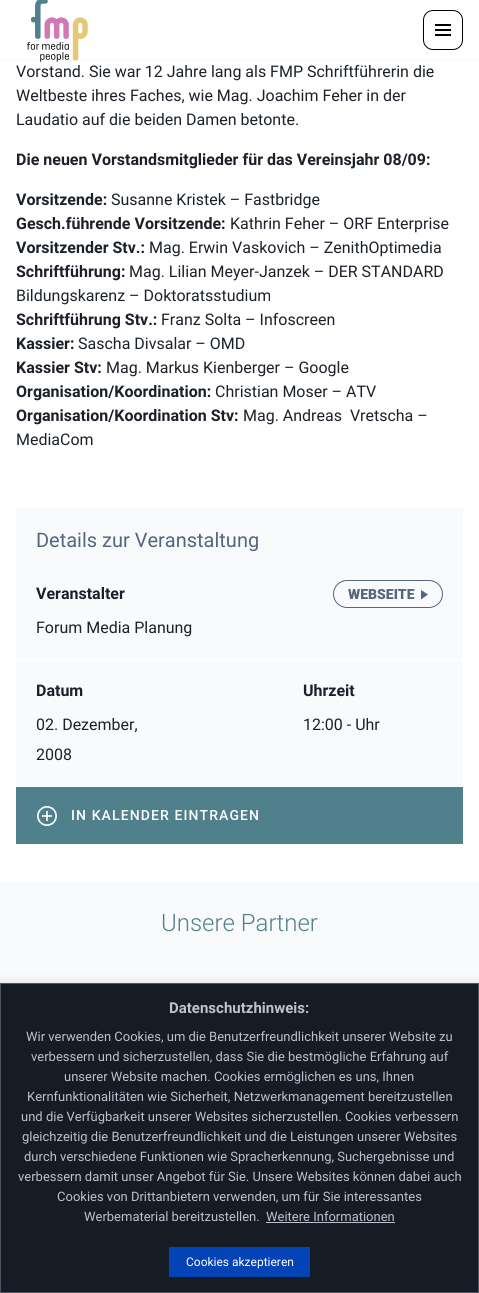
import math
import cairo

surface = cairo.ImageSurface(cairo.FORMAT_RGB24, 479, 1293)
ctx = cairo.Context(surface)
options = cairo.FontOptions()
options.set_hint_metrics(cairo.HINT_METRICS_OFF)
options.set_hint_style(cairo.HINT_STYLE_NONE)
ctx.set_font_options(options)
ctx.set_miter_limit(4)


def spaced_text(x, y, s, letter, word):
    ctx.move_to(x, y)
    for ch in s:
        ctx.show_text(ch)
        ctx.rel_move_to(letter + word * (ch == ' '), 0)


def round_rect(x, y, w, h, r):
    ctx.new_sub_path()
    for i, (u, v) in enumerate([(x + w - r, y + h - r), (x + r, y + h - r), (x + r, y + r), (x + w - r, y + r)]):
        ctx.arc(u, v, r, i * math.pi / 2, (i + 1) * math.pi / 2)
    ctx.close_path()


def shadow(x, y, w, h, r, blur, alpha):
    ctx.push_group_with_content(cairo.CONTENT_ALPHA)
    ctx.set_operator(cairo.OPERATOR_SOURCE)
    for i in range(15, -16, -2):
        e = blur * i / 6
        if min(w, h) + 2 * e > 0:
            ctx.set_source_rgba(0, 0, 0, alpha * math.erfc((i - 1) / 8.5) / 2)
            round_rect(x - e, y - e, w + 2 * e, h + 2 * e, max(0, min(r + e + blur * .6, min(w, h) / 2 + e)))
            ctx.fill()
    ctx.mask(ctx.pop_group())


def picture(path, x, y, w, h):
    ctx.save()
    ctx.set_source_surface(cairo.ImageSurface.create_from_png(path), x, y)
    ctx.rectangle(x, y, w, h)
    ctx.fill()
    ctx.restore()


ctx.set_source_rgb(1, 1, 1)
ctx.paint()
ctx.set_source_rgb(0.976, 0.98, 0.984)
ctx.rectangle(0, 60, 479, 1)
ctx.fill()
picture("img1.png", 26, 0, 62, 62)
round_rect(423.5, 10.5, 39, 39, 9.5)
ctx.set_source_rgb(0, 0, 0)
ctx.set_line_width(1)
ctx.stroke()
ctx.rectangle(435, 24, 16, 2)
ctx.fill()
ctx.rectangle(435, 29, 16, 2)
ctx.fill()
ctx.rectangle(435, 34, 16, 2)
ctx.fill()
ctx.select_font_face("Roboto")
ctx.set_font_size(16)
ctx.set_source_rgb(0.106, 0.125, 0.161)
ctx.move_to(16, 77)
ctx.show_text("Vorstand. Sie war 12 Jahre lang als FMP Schriftführerin die")
ctx.move_to(16, 101)
ctx.show_text("Weltbeste ihres Faches, wie Mag. Joachim Feher in der")
ctx.move_to(16, 125)
ctx.show_text("Laudatio auf die beiden Damen betonte.")
ctx.select_font_face("Roboto", cairo.FONT_SLANT_NORMAL, cairo.FONT_WEIGHT_BOLD)
ctx.move_to(16, 165)
ctx.show_text("Die neuen Vorstandsmitglieder für das Vereinsjahr 08/09:")
ctx.move_to(16, 205)
ctx.show_text("Vorsitzende:")
ctx.select_font_face("Roboto")
ctx.move_to(111, 205)
ctx.show_text("Susanne Kristek – Fastbridge")
ctx.select_font_face("Roboto", cairo.FONT_SLANT_NORMAL, cairo.FONT_WEIGHT_BOLD)
ctx.move_to(16, 229)
ctx.show_text("Gesch.führende Vorsitzende:")
ctx.select_font_face("Roboto")
ctx.move_to(230, 229)
ctx.show_text("Kathrin Feher – ORF Enterprise")
ctx.select_font_face("Roboto", cairo.FONT_SLANT_NORMAL, cairo.FONT_WEIGHT_BOLD)
ctx.move_to(16, 253)
ctx.show_text("Vorsitzender Stv.:")
ctx.select_font_face("Roboto")
ctx.move_to(149, 253)
ctx.show_text("Mag. Erwin Vaskovich – ZenithOptimedia")
ctx.select_font_face("Roboto", cairo.FONT_SLANT_NORMAL, cairo.FONT_WEIGHT_BOLD)
ctx.move_to(16, 277)
ctx.show_text("Schriftführung:")
ctx.select_font_face("Roboto")
ctx.move_to(129, 277)
ctx.show_text("Mag. Lilian Meyer-Janzek – DER STANDARD")
ctx.move_to(16, 301)
ctx.show_text("Bildungskarenz – Doktoratsstudium")
ctx.select_font_face("Roboto", cairo.FONT_SLANT_NORMAL, cairo.FONT_WEIGHT_BOLD)
ctx.move_to(16, 325)
ctx.show_text("Schriftführung Stv.:")
ctx.select_font_face("Roboto")
ctx.move_to(161, 325)
ctx.show_text("Franz Solta – Infoscreen")
ctx.select_font_face("Roboto", cairo.FONT_SLANT_NORMAL, cairo.FONT_WEIGHT_BOLD)
ctx.move_to(16, 349)
ctx.show_text("Kassier:")
ctx.select_font_face("Roboto")
ctx.move_to(78, 349)
ctx.show_text("Sascha Divsalar – OMD")
ctx.select_font_face("Roboto", cairo.FONT_SLANT_NORMAL, cairo.FONT_WEIGHT_BOLD)
ctx.move_to(16, 373)
ctx.show_text("Kassier Stv:")
ctx.select_font_face("Roboto")
ctx.move_to(106, 373)
ctx.show_text("Mag. Markus Kienberger – Google")
ctx.select_font_face("Roboto", cairo.FONT_SLANT_NORMAL, cairo.FONT_WEIGHT_BOLD)
ctx.move_to(16, 397)
ctx.show_text("Organisation/Koordination:")
ctx.select_font_face("Roboto")
ctx.move_to(215, 397)
ctx.show_text("Christian Moser – ATV")
ctx.select_font_face("Roboto", cairo.FONT_SLANT_NORMAL, cairo.FONT_WEIGHT_BOLD)
ctx.move_to(16, 421)
ctx.show_text("Organisation/Koordination Stv:")
ctx.select_font_face("Roboto")
ctx.move_to(243, 421)
ctx.show_text("Mag. Andreas  Vretscha –")
ctx.move_to(16, 445)
ctx.show_text("MediaCom")
ctx.set_source_rgb(0.976, 0.98, 0.984)
ctx.rectangle(16, 508, 447, 278)
ctx.fill()
ctx.set_font_size(20)
ctx.set_source_rgb(0.333, 0.392, 0.506)
ctx.move_to(36, 547)
ctx.show_text("Details zur Veranstaltung")
ctx.set_source_rgb(1, 1, 1)
ctx.rectangle(16, 659, 447, 1)
ctx.fill()
ctx.select_font_face("Roboto", cairo.FONT_SLANT_NORMAL, cairo.FONT_WEIGHT_BOLD)
ctx.set_font_size(16)
ctx.set_source_rgb(0.106, 0.125, 0.161)
ctx.move_to(36, 599)
ctx.show_text("Veranstalter")
round_rect(333.5, 580.5, 109, 27, 13.5)
ctx.set_source_rgb(0.333, 0.392, 0.506)
ctx.stroke()
ctx.select_font_face("Roboto Black")
ctx.set_font_size(14)
ctx.move_to(348, 599)
ctx.show_text("WEBSEITE")
ctx.new_path()
ctx.move_to(428, 594.5)
ctx.line_to(421, 599.5)
ctx.line_to(421, 590)
ctx.close_path()
ctx.fill()
ctx.select_font_face("Roboto")
ctx.set_font_size(16)
ctx.set_source_rgb(0.106, 0.125, 0.161)
ctx.move_to(36, 633)
ctx.show_text("Forum Media Planung")
ctx.select_font_face("Roboto", cairo.FONT_SLANT_NORMAL, cairo.FONT_WEIGHT_BOLD)
ctx.move_to(36, 696)
ctx.show_text("Datum")
ctx.select_font_face("Roboto")
ctx.move_to(36, 730)
ctx.show_text("02. Dezember,")
ctx.move_to(36, 760)
ctx.show_text("2008")
ctx.select_font_face("Roboto", cairo.FONT_SLANT_NORMAL, cairo.FONT_WEIGHT_BOLD)
ctx.move_to(303, 696)
ctx.show_text("Uhrzeit")
ctx.select_font_face("Roboto")
ctx.move_to(303, 730)
ctx.show_text("12:00 - Uhr")
ctx.set_source_rgb(0.314, 0.502, 0.549)
ctx.rectangle(16, 787, 447, 57)
ctx.fill()
picture("img2.png", 37, 806, 20, 20)
ctx.select_font_face("Roboto Medium")
ctx.set_font_size(14)
ctx.set_source_rgb(1, 1, 1)
spaced_text(71, 820, "IN KALENDER EINTRAGEN", 1.1, 0)
ctx.set_source_rgb(0.976, 0.98, 0.984)
ctx.rectangle(0, 882, 479, 101)
ctx.fill()
ctx.select_font_face("Roboto Light")
ctx.set_font_size(24)
ctx.set_source_rgb(0.314, 0.502, 0.549)
ctx.move_to(161, 931)
ctx.show_text("Unsere Partner")
ctx.set_source_rgb(0.675, 0.671, 0.671)
shadow(0, 982, 479, 310, 0, 5, 0.3)
ctx.set_source_rgb(0.09, 0.106, 0.137)
ctx.rectangle(0.5, 983.5, 478, 309)
ctx.fill_preserve()
ctx.set_source_rgb(0.31, 0.329, 0.38)
ctx.stroke()
ctx.select_font_face("Roboto", cairo.FONT_SLANT_NORMAL, cairo.FONT_WEIGHT_BOLD)
ctx.set_font_size(15)
ctx.set_source_rgb(0.741, 0.761, 0.816)
ctx.move_to(169, 1013)
ctx.show_text("Datenschutzhinweis:")
ctx.select_font_face("Roboto")
ctx.set_font_size(13)
ctx.move_to(26, 1041)
ctx.show_text("Wir verwenden Cookies, um die Benutzerfreundlichkeit unserer Website zu")
ctx.move_to(31, 1061)
ctx.show_text("verbessern und sicherzustellen, dass Sie die bestmögliche Erfahrung auf")
ctx.move_to(64, 1081)
ctx.show_text("unserer Website machen. Cookies ermöglichen es uns, Ihnen")
ctx.move_to(27, 1101)
ctx.show_text("Kernfunktionalitäten wie Sicherheit, Netzwerkmanagement bereitzustellen")
ctx.move_to(21, 1121)
ctx.show_text("und die Verfügbarkeit unserer Websites sicherzustellen. Cookies verbessern")
ctx.move_to(22, 1141)
ctx.show_text("gleichzeitig die Benutzerfreundlichkeit und die Leistungen unserer Websites")
ctx.move_to(24, 1161)
ctx.show_text("durch verschiedene Funktionen wie Spracherkennung, Suchergebnisse und")
ctx.move_to(18, 1181)
ctx.show_text("verbessern damit unser Angebot für Sie. Unsere Websites können dabei auch")
ctx.move_to(57, 1201)
ctx.show_text("Cookies von Drittanbietern verwenden, um für Sie interessantes")
ctx.move_to(84, 1221)
ctx.show_text("Werbematerial bereitzustellen.")
ctx.move_to(266, 1221)
ctx.show_text("Weitere Informationen")
ctx.rectangle(266, 1222, 129, 1)
ctx.fill()
ctx.set_source_rgb(0.016, 0.263, 0.71)
ctx.rectangle(169, 1247, 141, 30)
ctx.fill()
ctx.set_font_size(12)
ctx.set_source_rgb(1, 1, 1)
ctx.move_to(186, 1266)
ctx.show_text("Cookies akzeptieren")
surface.write_to_png("page.png")
